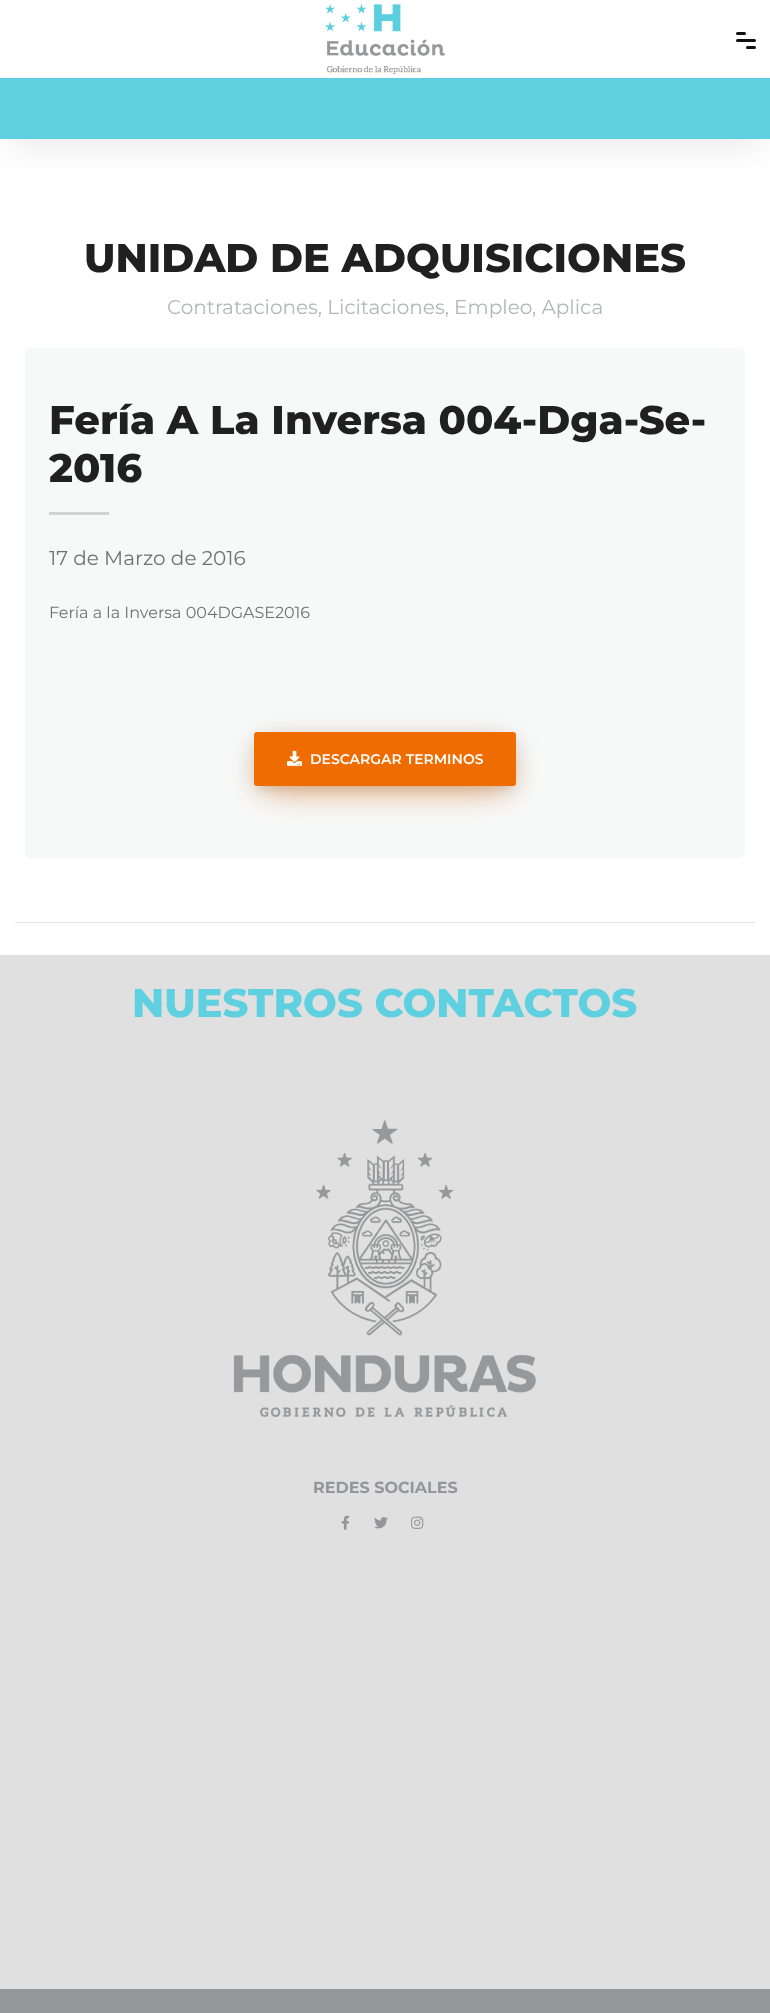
<svg xmlns="http://www.w3.org/2000/svg" width="770" height="2013" viewBox="0 0 770 2013">
  <defs>
    <clipPath id="clip1"><path d="M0 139h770v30H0z"/></clipPath>
  </defs>
  <rect width="100%" height="100%" fill="#fff"/>
  <g clip-path="url(#clip1)">
    <rect x="5" y="94" width="760" height="50" rx="25" fill="#0000001a" filter="blur(20px)"/>
  </g>
  <image x="325" y="4" width="120" height="70" href="img/1.png"/>
  <rect x="736" y="32" width="10" height="3" rx="1.5" fill="#111"/>
  <rect x="736" y="39" width="20" height="3" rx="1.5" fill="#111"/>
  <rect x="746" y="46" width="10" height="3" rx="1.5" fill="#111"/>
  <path d="M0 78h770v61H0z" fill="#5fd0df"/>
  <rect x="25" y="348" width="720" height="510" rx="5" fill="#f7f9f9"/>
  <path d="M49 512h60v3H49z" fill="#d2d4d4"/>
  <rect x="256" y="738" width="258" height="50" rx="1" fill="#00000024" filter="blur(12.5px)"/>
  <path d="M259 745h252v44H259z" fill="#00000017" filter="blur(5px)"/>
  <path d="M264 754h242v34H264z" fill="#ef6c008c" filter="blur(17.5px)"/>
  <rect x="255" y="733" width="260" height="52" rx="2" fill="#ef6c00" stroke="#ef6c00" stroke-width="2"/>
  <image x="287" y="750" width="15" height="16" href="img/2.png"/>
  <path d="M15 922h740v1H15z" fill="#e6e6e6"/>
  <path d="M0 955h770v1034H0z" fill="#e0e0e0"/>
  <image x="233" y="1120" width="303" height="297" href="img/3.png"/>
  <image x="341" y="1515" width="9" height="15" href="img/4.png"/>
  <image x="374" y="1517" width="14" height="12" href="img/5.png"/>
  <image x="411" y="1516" width="13" height="13" href="img/6.png"/>
  <path d="M0 1989h770v24H0z" fill="#949699"/>
  <text x="84" y="272" font-family="Montserrat" font-size="40" font-weight="800" fill="#202020">UNIDAD DE ADQUISICIONES</text>
  <text x="167" y="314" font-family="Montserrat" font-size="20" fill="#b3b6b7">Contrataciones, Licitaciones, Empleo, Aplica</text>
  <g font-family="Montserrat" font-size="40" font-weight="800" fill="#202020">
    <text x="49" y="434">Fería A La Inversa 004-Dga-Se-</text>
    <text x="49" y="482">2016</text>
  </g>
  <text x="49" y="565" font-family="Montserrat" font-size="20" fill="#717171">17 de Marzo de 2016</text>
  <text x="49" y="618" font-family="Montserrat" font-size="16" fill="#717171">Fería a la Inversa 004DGASE2016</text>
  <text x="310" y="764" font-family="Montserrat" font-size="14" font-weight="600" fill="#fff">DESCARGAR TERMINOS</text>
  <text x="132" y="1017" font-family="Montserrat" font-size="40" font-weight="800" fill="#5fd0df">NUESTROS CONTACTOS</text>
  <text x="313" y="1493" font-family="Montserrat" font-size="16" font-weight="bold" fill="#949699">REDES SOCIALES</text>
</svg>
